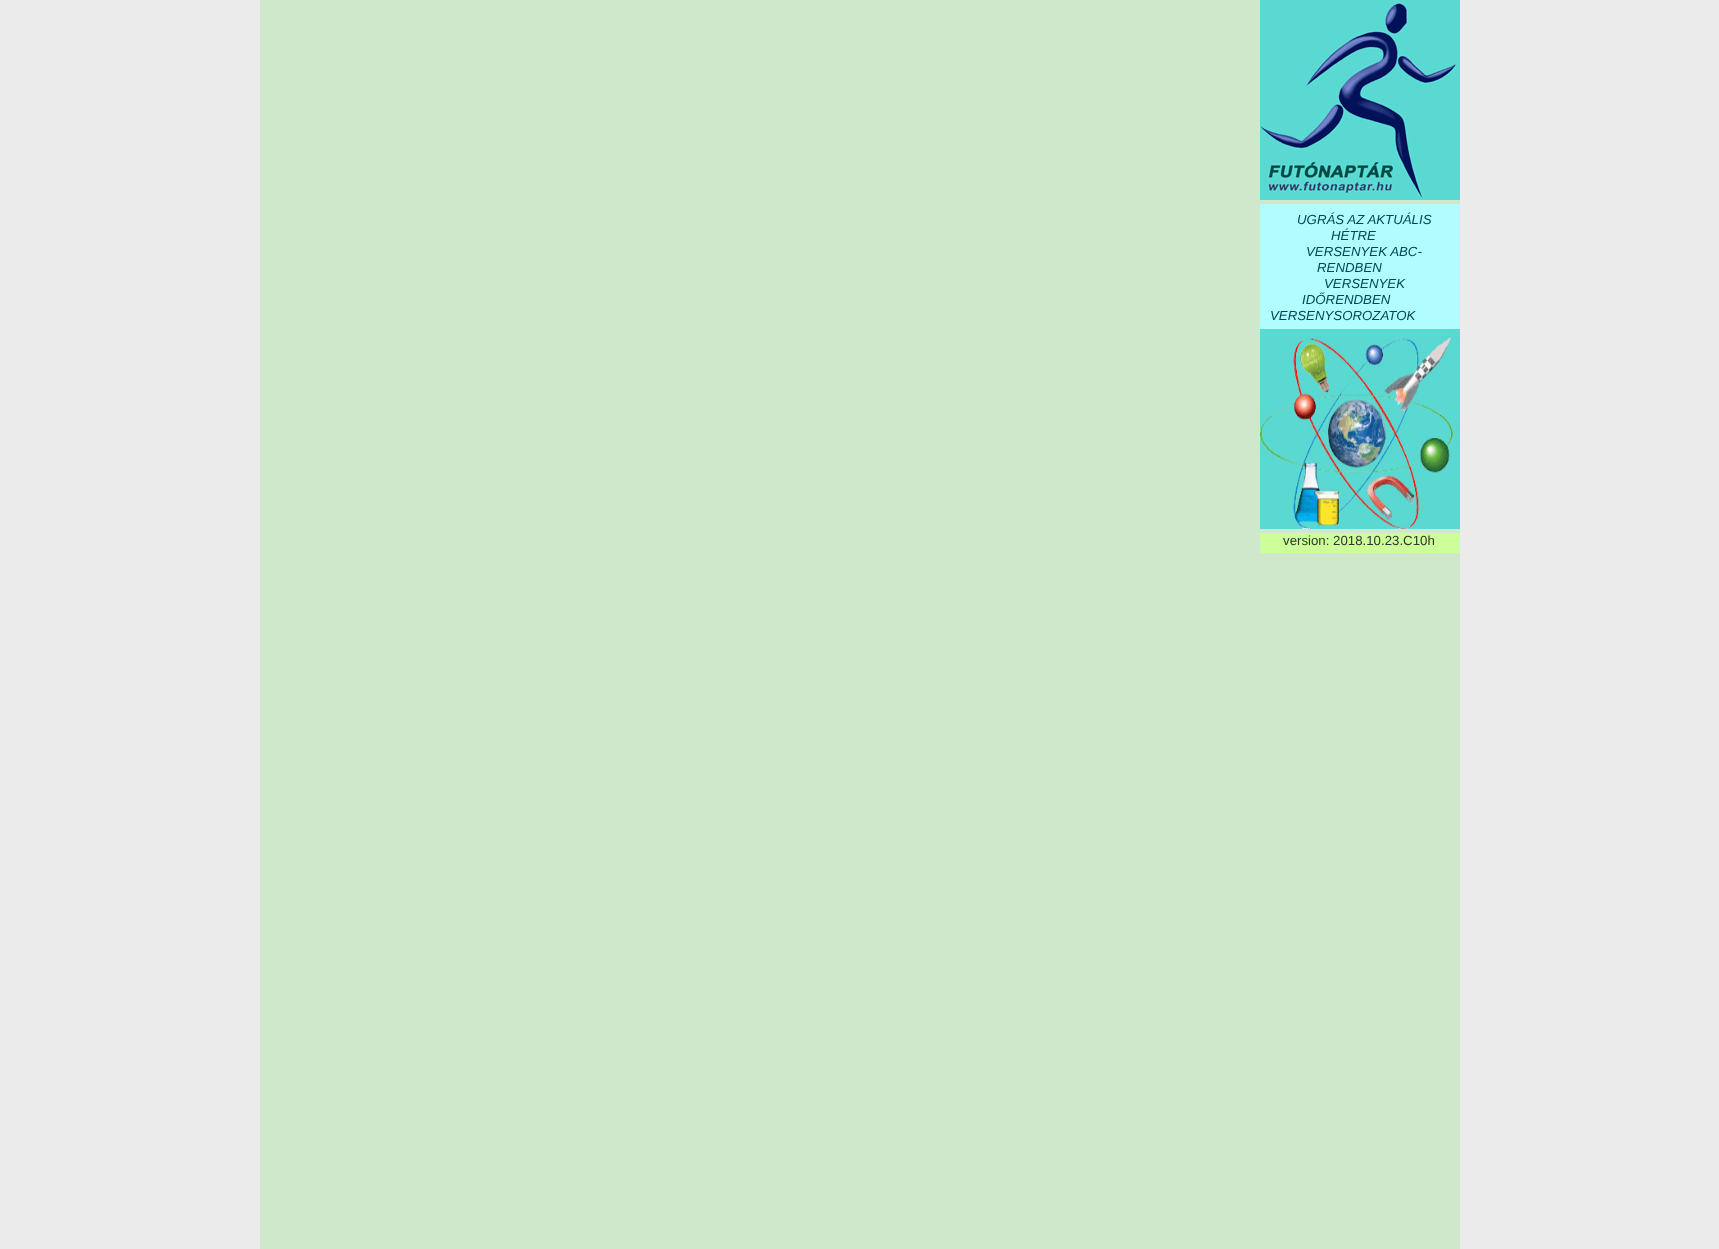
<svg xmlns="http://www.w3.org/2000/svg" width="1719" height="1249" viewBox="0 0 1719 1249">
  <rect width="100%" height="100%" fill="#ebebeb"/>
  <path d="M260 0h1200v1249H260z" fill="#cfe8cb"/>
  <image x="1260" y="0" width="200" height="200" href="img/1.png"/>
  <path d="M1260 204h200v125H1260z" fill="#b0fcff"/>
  <image x="1260" y="329" width="200" height="200" href="img/2.png"/>
  <path d="M1260 533h200v20H1260z" fill="#cf9"/>
  <g font-family="Liberation Sans" font-size="13.25" font-style="italic" fill="#004754">
    <text x="1297" y="224">UGRÁS AZ AKTUÁLIS</text>
    <text x="1331" y="240">HÉTRE</text>
    <text x="1306" y="256">VERSENYEK ABC-</text>
    <text x="1317" y="272">RENDBEN</text>
    <text x="1324" y="288">VERSENYEK</text>
    <text x="1302" y="304">IDŐRENDBEN</text>
    <text x="1270" y="320">VERSENYSOROZATOK</text>
  </g>
  <text x="1283" y="545" font-family="Liberation Sans" font-size="13.25" fill="#333">version: 2018.10.23.C10h</text>
</svg>
